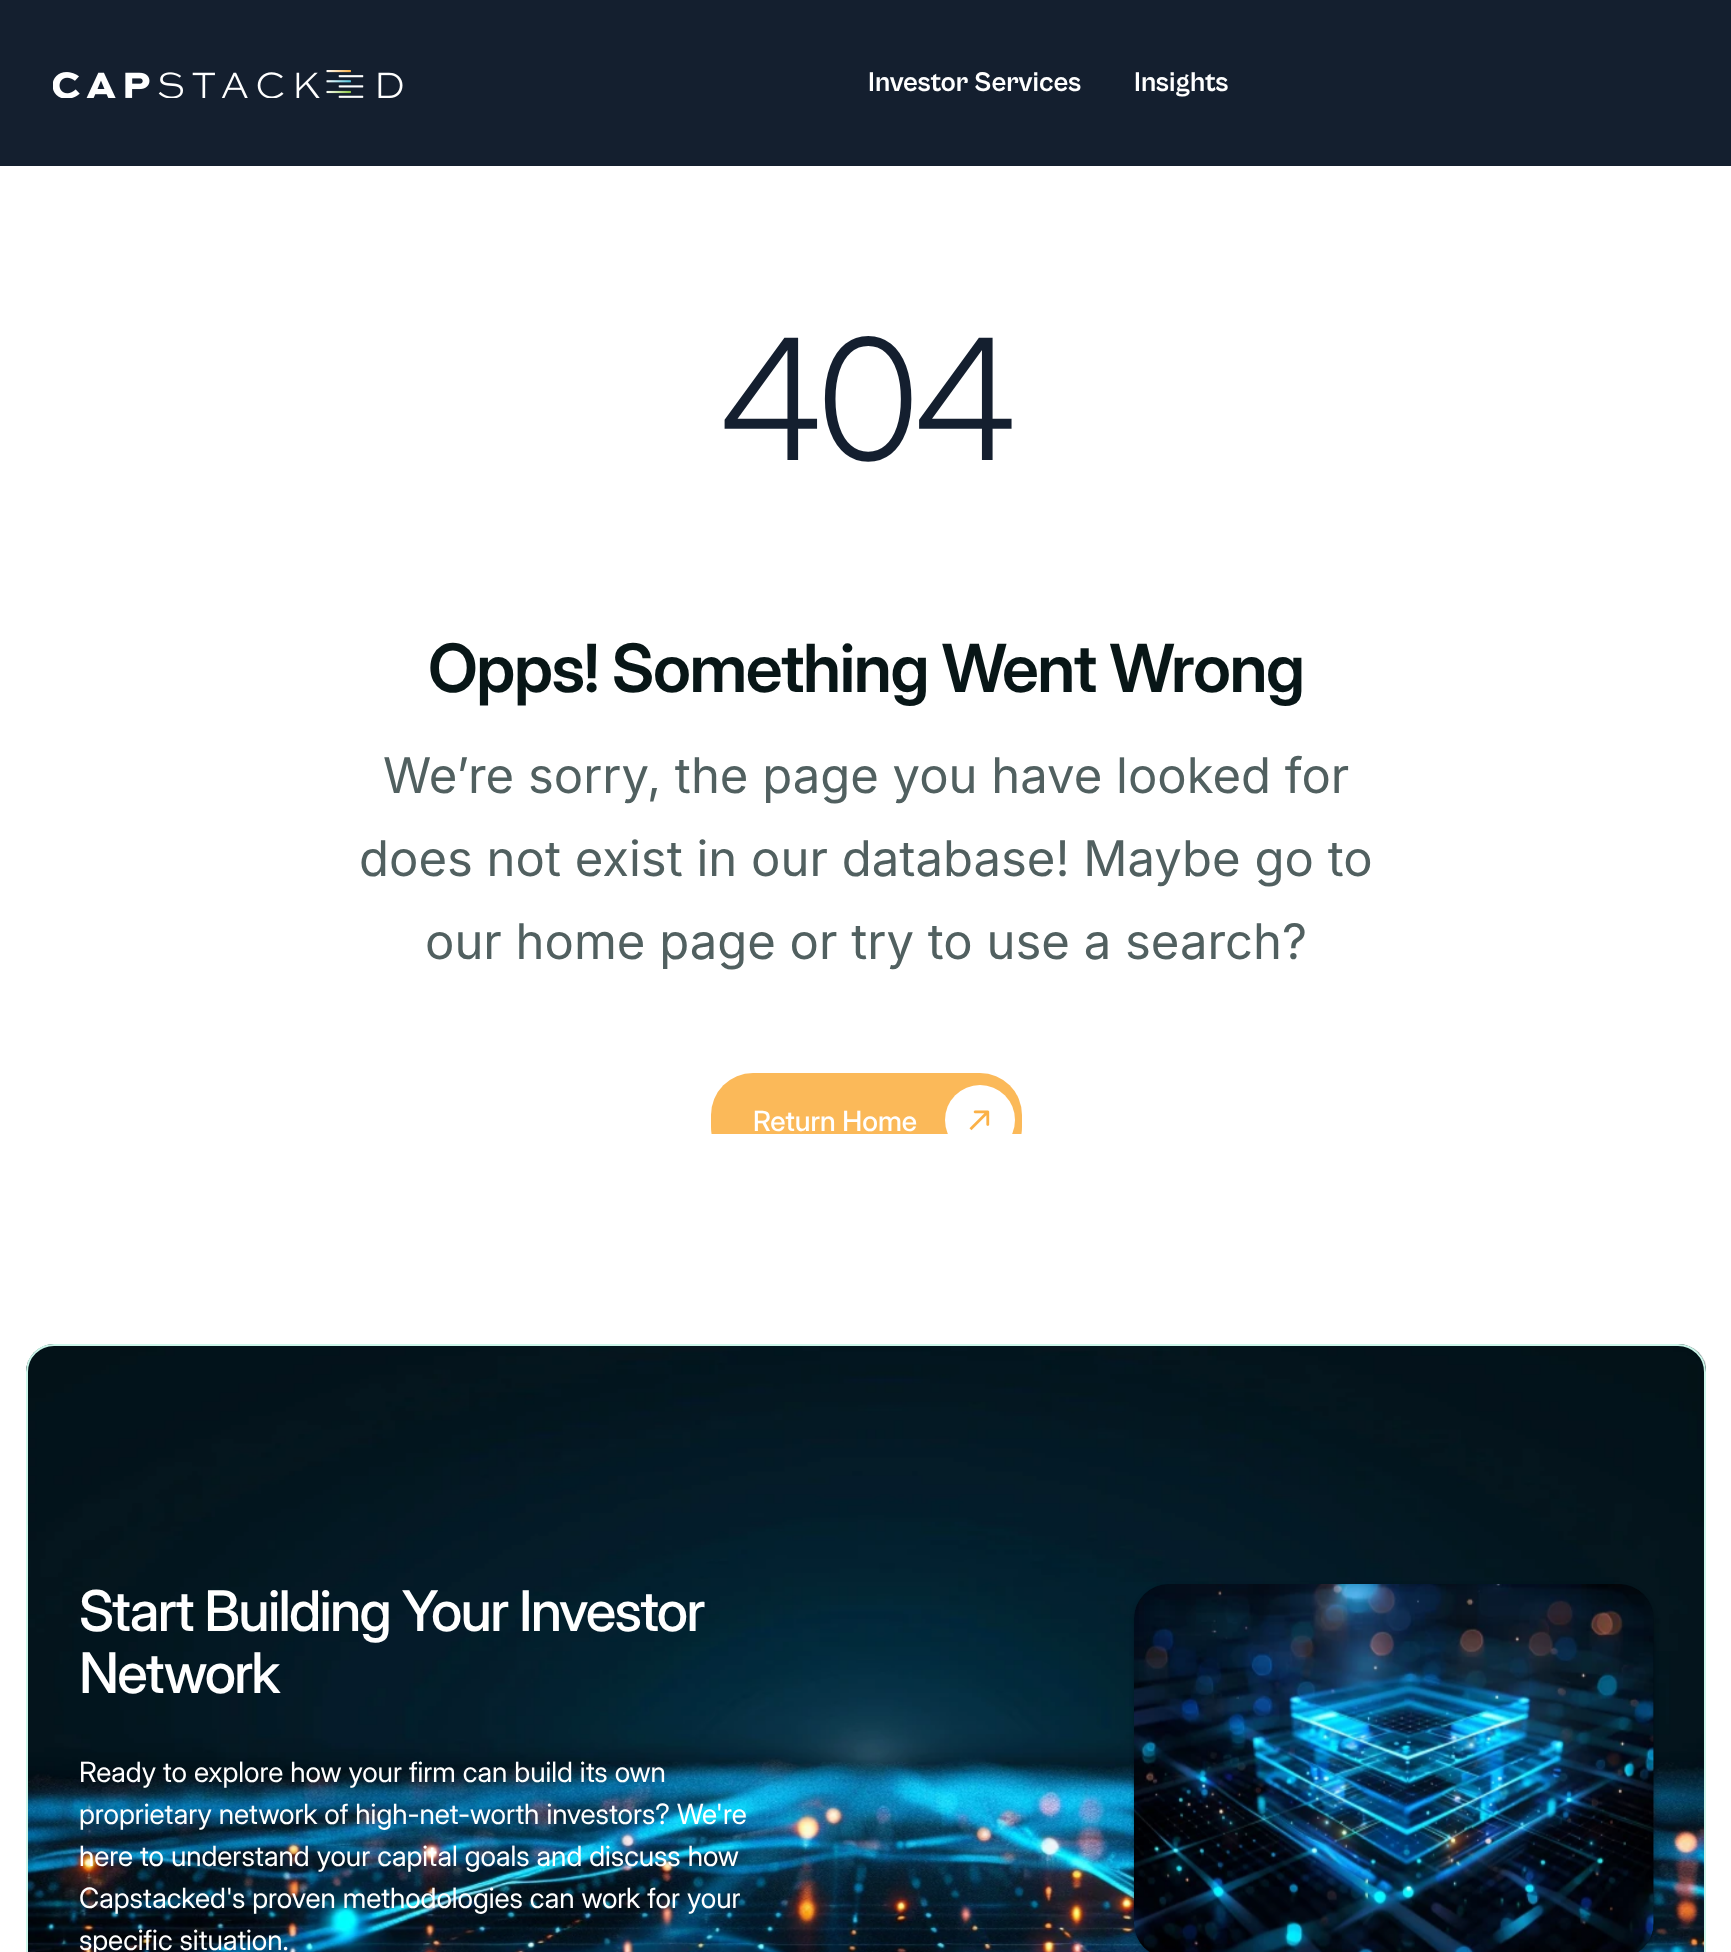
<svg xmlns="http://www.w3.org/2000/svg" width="1731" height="1952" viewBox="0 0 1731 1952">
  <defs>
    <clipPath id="clip1"><path d="M0 0h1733v1134H0z"/></clipPath>
  </defs>
  <rect width="100%" height="100%" fill="#fff"/>
  <path d="M0 0h1731v166H0z" fill="#141f2f"/>
  <image x="53" y="70" width="350" height="28" href="img/1.png"/>
  <g clip-path="url(#clip1)">
    <rect x="711" y="1073" width="311" height="96" rx="42" fill="#fbb959"/>
    <circle cx="980" cy="1120" r="35" fill="#fff"/>
  </g>
  <image x="969" y="1110" width="21" height="21" href="img/2.png"/>
  <image x="26" y="1344" width="1680" height="608" href="img/3.png"/>
  <rect x="27" y="1345" width="1678" height="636" rx="27" fill="none" stroke="#ccf6ea" stroke-width="2"/>
  <rect x="1134" y="1586" width="520" height="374" rx="35" fill="#00000040" filter="blur(2px)"/>
  <image x="1134" y="1584" width="520" height="368" href="img/4.png"/>
  <g font-family="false" font-size="28" font-weight="bold" fill="#fff">
    <text x="868" y="91">Investor Services</text>
    <text x="1134" y="91">Insights</text>
  </g>
  <text x="720" y="460" font-family="Inter Display" font-size="168" font-weight="300" letter-spacing="-3.5" fill="#141f2f">404</text>
  <text x="428" y="692" font-family="Inter Display" font-size="66.5" font-weight="600" letter-spacing="-1.4" fill="#081617">Opps! Something Went Wrong</text>
  <g font-family="Inter" font-size="49" fill="#516060">
    <text x="383" y="793">We’re sorry, the page you have looked for</text>
    <text x="359" y="876">does not exist in our database! Maybe go to</text>
    <text x="425" y="959">our home page or try to use a search?</text>
  </g>
  <text x="753" y="1131" font-family="Inter Display" font-size="28" font-weight="500" fill="#fff">Return Home</text>
  <g font-family="Inter Display" font-size="56" font-weight="500" letter-spacing="-1.75" fill="#fff">
    <text x="79" y="1631">Start Building Your Investor</text>
    <text x="79" y="1693">Network</text>
  </g>
  <g font-family="Inter Display" font-size="28" fill="#fff">
    <text x="79" y="1782">Ready to explore how your firm can build its own</text>
    <text x="79" y="1824">proprietary network of high-net-worth investors? We're</text>
    <text x="79" y="1866">here to understand your capital goals and discuss how</text>
    <text x="79" y="1908">Capstacked's proven methodologies can work for your</text>
    <text x="79" y="1950">specific situation.</text>
  </g>
</svg>
